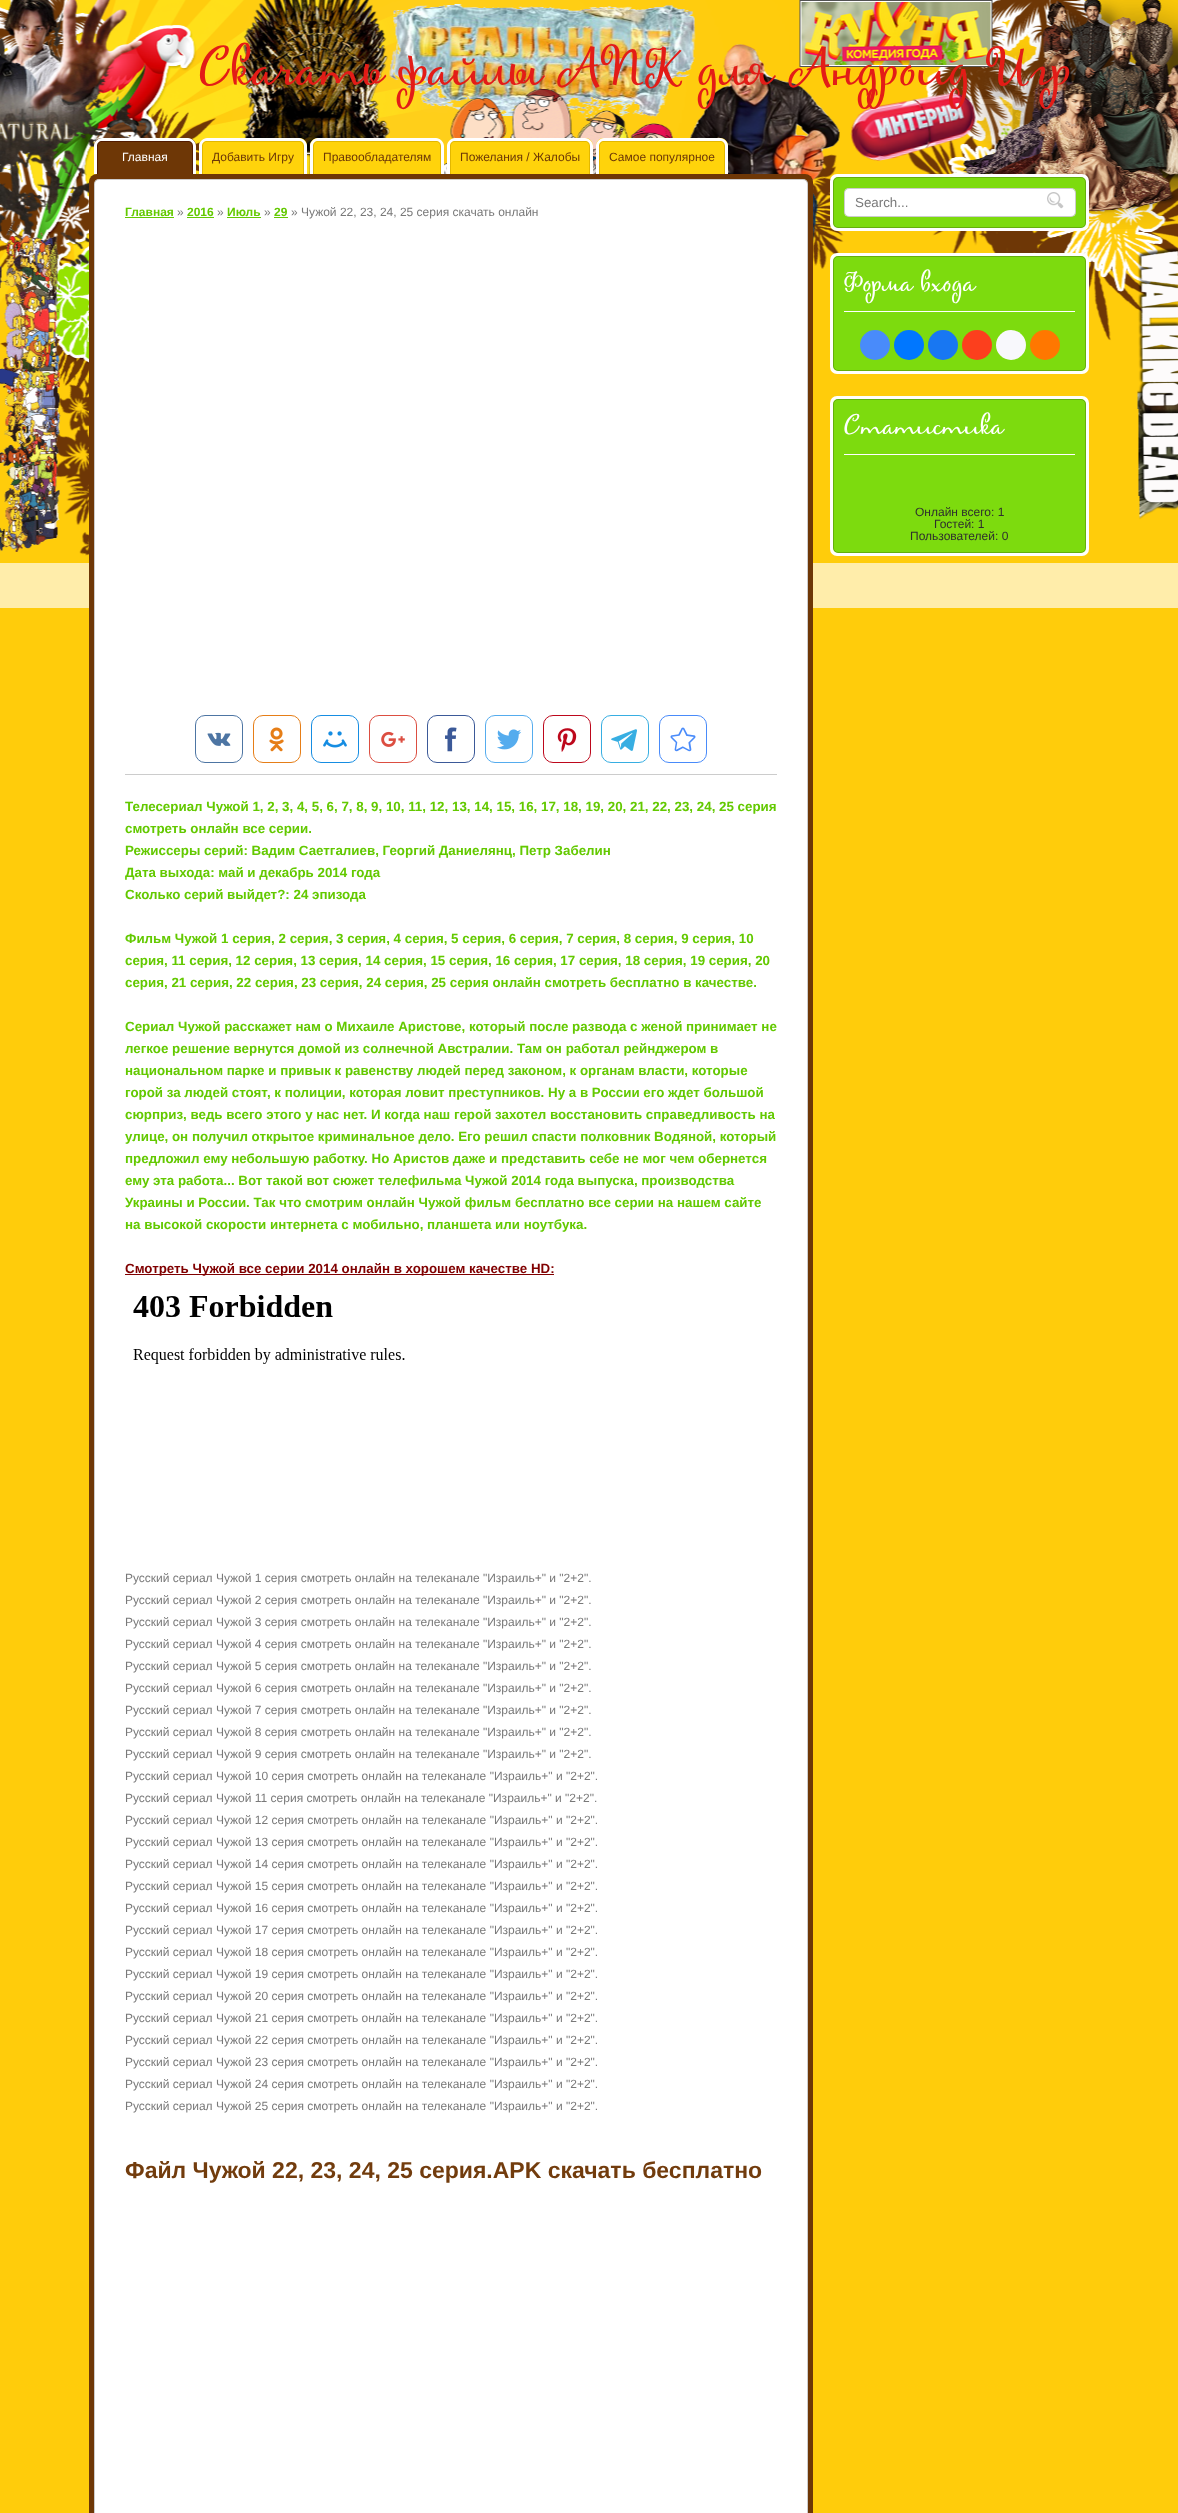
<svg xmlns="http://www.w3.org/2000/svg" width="1178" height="2513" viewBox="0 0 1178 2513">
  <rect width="100%" height="100%" fill="#ffcc0b"/>
  <image x="0" y="0" width="1178" height="608" href="img/1.png"/>
  <path d="M102 138H188C192.5 138 196 141.5 196 146V174H94V146C94 141.5 97.5 138 102 138Z" fill="#6e3706"/>
  <path d="M192 174H193V146C193 143 191 141 188 141H187C190 141 192 143 192 146Z" fill="#521b00"/>
  <path d="M102 141C99 141 97 143 97 146V174H98V146C98 143 100 141 103 141Z" fill="#521b00"/>
  <path d="M102 142H188C191 142 193 144 193 147C193 137 179 141 174 141H116C111 141 97 137 97 147C97 144 99 142 102 142Z" fill="#521b00"/>
  <path d="M102 138H188C192 138 196 142 196 146V174H94V146C94 142 98 138 102 138ZM102 141H188C191 141 193 143 193 146V174H97V146C97 143 99 141 102 141Z" fill="#fff" fill-rule="evenodd"/>
  <path d="M207 138H299C303.5 138 307 141.5 307 146V174H199V146C199 141.5 202.5 138 207 138Z" fill="#ffd30b"/>
  <path d="M303 174H304V146C304 143 302 141 299 141H298C301 141 303 143 303 146Z" fill="#e3b700"/>
  <path d="M207 141C204 141 202 143 202 146V174H203V146C203 143 205 141 208 141Z" fill="#e3b700"/>
  <path d="M207 142H299C302 142 304 144 304 147C304 137 289 141 284 141H222C217 141 202 137 202 147C202 144 204 142 207 142Z" fill="#e3b700"/>
  <path d="M207 138H299C303 138 307 142 307 146V174H199V146C199 142 203 138 207 138ZM207 141H299C302 141 304 143 304 146V174H202V146C202 143 204 141 207 141Z" fill="#fff" fill-rule="evenodd"/>
  <path d="M318 138H436C440.5 138 444 141.5 444 146V174H310V146C310 141.5 313.5 138 318 138Z" fill="#ffd30b"/>
  <path d="M440 174H441V146C441 143 439 141 436 141H435C438 141 440 143 440 146Z" fill="#e3b700"/>
  <path d="M318 141C315 141 313 143 313 146V174H314V146C314 143 316 141 319 141Z" fill="#e3b700"/>
  <path d="M318 142H436C439 142 441 144 441 147C441 136 420 141 416 141H338C334 141 313 136 313 147C313 144 315 142 318 142Z" fill="#e3b700"/>
  <path d="M318 138H436C440 138 444 142 444 146V174H310V146C310 142 314 138 318 138ZM318 141H436C439 141 441 143 441 146V174H313V146C313 143 315 141 318 141Z" fill="#fff" fill-rule="evenodd"/>
  <path d="M455 138H585C589.5 138 593 141.5 593 146V174H447V146C447 141.5 450.5 138 455 138Z" fill="#ffd30b"/>
  <path d="M589 174H590V146C590 143 588 141 585 141H584C587 141 589 143 589 146Z" fill="#e3b700"/>
  <path d="M455 141C452 141 450 143 450 146V174H451V146C451 143 453 141 456 141Z" fill="#e3b700"/>
  <path d="M455 142H585C588 142 590 144 590 147V146C590 143 588 141 585 141H455C452 141 450 143 450 146V147C450 144 452 142 455 142Z" fill="#e3b700"/>
  <path d="M455 138H585C589 138 593 142 593 146V174H447V146C447 142 451 138 455 138ZM455 141H585C588 141 590 143 590 146V174H450V146C450 143 452 141 455 141Z" fill="#fff" fill-rule="evenodd"/>
  <path d="M604 138H720C724.5 138 728 141.5 728 146V174H596V146C596 141.5 599.5 138 604 138Z" fill="#ffd30b"/>
  <path d="M724 174H725V146C725 143 723 141 720 141H719C722 141 724 143 724 146Z" fill="#e3b700"/>
  <path d="M604 141C601 141 599 143 599 146V174H600V146C600 143 602 141 605 141Z" fill="#e3b700"/>
  <path d="M604 142H720C723 142 725 144 725 147C725 136 705 141 701 141H623C619 141 599 136 599 147C599 144 601 142 604 142Z" fill="#e3b700"/>
  <path d="M604 138H720C724 138 728 142 728 146V174H596V146C596 142 600 138 604 138ZM604 141H720C723 141 725 143 725 146V174H599V146C599 143 601 141 604 141Z" fill="#fff" fill-rule="evenodd"/>
  <rect x="89" y="174" width="724" height="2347" rx="8" fill="#6e3706"/>
  <rect x="94" y="179" width="714" height="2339" rx="5" fill="#fff"/>
  <rect x="94.5" y="179.5" width="713" height="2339" rx="4.5" fill="none" stroke="#00000033"/>
  <path d="M125 217h49v1H125z" fill="#63c900"/>
  <path d="M187 217h27v1H187z" fill="#63c900"/>
  <path d="M227 217h34v1H227z" fill="#63c900"/>
  <path d="M274 217h14v1H274z" fill="#63c900"/>
  <rect x="195.5" y="715.5" width="47" height="47" rx="9.5" fill="none" stroke="#4d75a3"/>
  <image x="207" y="732" width="24" height="14" href="img/2.png"/>
  <rect x="253.5" y="715.5" width="47" height="47" rx="9.5" fill="none" stroke="#e67e17"/>
  <image x="269" y="727" width="15" height="25" href="img/3.png"/>
  <rect x="311.5" y="715.5" width="47" height="47" rx="9.5" fill="none" stroke="#168de2"/>
  <image x="323" y="731" width="24" height="17" href="img/4.png"/>
  <rect x="369.5" y="715.5" width="47" height="47" rx="9.5" fill="none" stroke="#dc4e41"/>
  <image x="381" y="731" width="24" height="16" href="img/5.png"/>
  <rect x="427.5" y="715.5" width="47" height="47" rx="9.5" fill="none" stroke="#3b5998"/>
  <image x="445" y="727" width="12" height="25" href="img/6.png"/>
  <rect x="485.5" y="715.5" width="47" height="47" rx="9.5" fill="none" stroke="#55acee"/>
  <image x="497" y="729" width="25" height="21" href="img/7.png"/>
  <rect x="543.5" y="715.5" width="47" height="47" rx="9.5" fill="none" stroke="#bd081c"/>
  <image x="557" y="728" width="20" height="24" href="img/8.png"/>
  <rect x="601.5" y="715.5" width="47" height="47" rx="9.5" fill="none" stroke="#37aee2"/>
  <image x="611" y="729" width="26" height="22" href="img/9.png"/>
  <rect x="659.5" y="715.5" width="47" height="47" rx="9.5" fill="none" stroke="#498bfa"/>
  <image x="670" y="727" width="26" height="25" href="img/10.png"/>
  <path d="M125 774h652v1H125z" fill="#ccc"/>
  <path d="M125 1274h429v1H125z" fill="#800000"/>
  <image x="133" y="1295" width="272" height="69" href="img/11.png"/>
  <rect x="830" y="174" width="259" height="57" rx="7" fill="#fff"/>
  <rect x="833" y="177" width="253" height="51" rx="5" fill="#7ddb0e"/>
  <rect x="833.5" y="177.5" width="252" height="50" rx="4.5" fill="none" stroke="#00000033"/>
  <rect x="844" y="188" width="232" height="29" rx="5" fill="#fff"/>
  <rect x="844.5" y="188.5" width="231" height="28" rx="4.5" fill="none" stroke="#00000033"/>
  <image x="1047" y="192" width="17" height="17" href="img/12.png"/>
  <rect x="830" y="253" width="259" height="121" rx="7" fill="#fff"/>
  <rect x="833" y="256" width="253" height="115" rx="5" fill="#7ddb0e"/>
  <rect x="833.5" y="256.5" width="252" height="114" rx="4.5" fill="none" stroke="#00000033"/>
  <path d="M844 311h231v1H844z" fill="#fff"/>
  <circle cx="875" cy="345" r="15" fill="#498bfa"/>
  <circle cx="909" cy="345" r="15" fill="#07f"/>
  <circle cx="943" cy="345" r="15" fill="#1877f2"/>
  <circle cx="977" cy="345" r="15" fill="#fc3f1d"/>
  <circle cx="1011" cy="345" r="15" fill="#f8f8fc"/>
  <circle cx="1045" cy="345" r="15" fill="#f70"/>
  <rect x="830" y="396" width="259" height="160" rx="7" fill="#fff"/>
  <rect x="833" y="399" width="253" height="154" rx="5" fill="#7ddb0e"/>
  <rect x="833.5" y="399.5" width="252" height="153" rx="4.5" fill="none" stroke="#00000033"/>
  <path d="M844 454h231v1H844z" fill="#fff"/>
  <text x="199" y="85" font-family="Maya" font-size="47" fill="#e31c17">Скачать файлы АПК для Андроид Игр</text>
  <text x="122" y="161" font-family="Liberation Sans" font-size="12" fill="#fff">Главная</text>
  <g font-family="Liberation Sans" font-size="12" fill="#6c3707">
    <text x="212" y="161">Добавить Игру</text>
    <text x="323" y="161">Правообладателям</text>
    <text x="460" y="161">Пожелания / Жалобы</text>
    <text x="609" y="161">Самое популярное</text>
  </g>
  <text x="125" y="216" font-family="Liberation Sans" font-size="12" font-weight="bold" fill="#63c900">Главная</text>
  <text x="177" y="216" font-family="Liberation Sans" font-size="12" fill="#797979">»</text>
  <text x="187" y="216" font-family="Liberation Sans" font-size="12" font-weight="bold" fill="#63c900">2016</text>
  <text x="217" y="216" font-family="Liberation Sans" font-size="12" fill="#797979">»</text>
  <text x="227" y="216" font-family="Liberation Sans" font-size="12" font-weight="bold" fill="#63c900">Июль</text>
  <text x="264" y="216" font-family="Liberation Sans" font-size="12" fill="#797979">»</text>
  <text x="274" y="216" font-family="Liberation Sans" font-size="12" font-weight="bold" fill="#63c900">29</text>
  <text x="291" y="216" font-family="Liberation Sans" font-size="12" fill="#797979">» Чужой 22, 23, 24, 25 серия скачать онлайн</text>
  <g font-family="Liberation Sans" font-size="13.35" font-weight="bold" fill="#63c900">
    <text x="125" y="811">Телесериал Чужой 1, 2, 3, 4, 5, 6, 7, 8, 9, 10, 11, 12, 13, 14, 15, 16, 17, 18, 19, 20, 21, 22, 23, 24, 25 серия</text>
    <text x="125" y="833">смотреть онлайн все серии.</text>
    <text x="125" y="855">Режиссеры серий: Вадим Саетгалиев, Георгий Даниелянц, Петр Забелин</text>
    <text x="125" y="877">Дата выхода: май и декабрь 2014 года</text>
    <text x="125" y="899">Сколько серий выйдет?: 24 эпизода</text>
    <text x="125" y="943">Фильм Чужой 1 серия, 2 серия, 3 серия, 4 серия, 5 серия, 6 серия, 7 серия, 8 серия, 9 серия, 10</text>
    <text x="125" y="965">серия, 11 серия, 12 серия, 13 серия, 14 серия, 15 серия, 16 серия, 17 серия, 18 серия, 19 серия, 20</text>
    <text x="125" y="987">серия, 21 серия, 22 серия, 23 серия, 24 серия, 25 серия онлайн смотреть бесплатно в качестве.</text>
    <text x="125" y="1031">Сериал Чужой расскажет нам о Михаиле Аристове, который после развода с женой принимает не</text>
    <text x="125" y="1053">легкое решение вернутся домой из солнечной Австралии. Там он работал рейнджером в</text>
    <text x="125" y="1075">национальном парке и привык к равенству людей перед законом, к органам власти, которые</text>
    <text x="125" y="1097">горой за людей стоят, к полиции, которая ловит преступников. Ну а в России его ждет большой</text>
    <text x="125" y="1119">сюрприз, ведь всего этого у нас нет. И когда наш герой захотел восстановить справедливость на</text>
    <text x="125" y="1141">улице, он получил открытое криминальное дело. Его решил спасти полковник Водяной, который</text>
    <text x="125" y="1163">предложил ему небольшую работку. Но Аристов даже и представить себе не мог чем обернется</text>
    <text x="125" y="1185">ему эта работа... Вот такой вот сюжет телефильма Чужой 2014 года выпуска, производства</text>
    <text x="125" y="1207">Украины и России. Так что смотрим онлайн Чужой фильм бесплатно все серии на нашем сайте</text>
    <text x="125" y="1229">на высокой скорости интернета с мобильно, планшета или ноутбука.</text>
  </g>
  <text x="125" y="1273" font-family="Liberation Sans" font-size="13.35" font-weight="bold" fill="#800000">Смотреть Чужой все серии 2014 онлайн в хорошем качестве HD:</text>
  <g font-family="Liberation Sans" font-size="12" fill="#797979">
    <text x="125" y="1582">Русский сериал Чужой 1 серия смотреть онлайн на телеканале "Израиль+" и "2+2".</text>
    <text x="125" y="1604">Русский сериал Чужой 2 серия смотреть онлайн на телеканале "Израиль+" и "2+2".</text>
    <text x="125" y="1626">Русский сериал Чужой 3 серия смотреть онлайн на телеканале "Израиль+" и "2+2".</text>
    <text x="125" y="1648">Русский сериал Чужой 4 серия смотреть онлайн на телеканале "Израиль+" и "2+2".</text>
    <text x="125" y="1670">Русский сериал Чужой 5 серия смотреть онлайн на телеканале "Израиль+" и "2+2".</text>
    <text x="125" y="1692">Русский сериал Чужой 6 серия смотреть онлайн на телеканале "Израиль+" и "2+2".</text>
    <text x="125" y="1714">Русский сериал Чужой 7 серия смотреть онлайн на телеканале "Израиль+" и "2+2".</text>
    <text x="125" y="1736">Русский сериал Чужой 8 серия смотреть онлайн на телеканале "Израиль+" и "2+2".</text>
    <text x="125" y="1758">Русский сериал Чужой 9 серия смотреть онлайн на телеканале "Израиль+" и "2+2".</text>
    <text x="125" y="1780">Русский сериал Чужой 10 серия смотреть онлайн на телеканале "Израиль+" и "2+2".</text>
    <text x="125" y="1802">Русский сериал Чужой 11 серия смотреть онлайн на телеканале "Израиль+" и "2+2".</text>
    <text x="125" y="1824">Русский сериал Чужой 12 серия смотреть онлайн на телеканале "Израиль+" и "2+2".</text>
    <text x="125" y="1846">Русский сериал Чужой 13 серия смотреть онлайн на телеканале "Израиль+" и "2+2".</text>
    <text x="125" y="1868">Русский сериал Чужой 14 серия смотреть онлайн на телеканале "Израиль+" и "2+2".</text>
    <text x="125" y="1890">Русский сериал Чужой 15 серия смотреть онлайн на телеканале "Израиль+" и "2+2".</text>
    <text x="125" y="1912">Русский сериал Чужой 16 серия смотреть онлайн на телеканале "Израиль+" и "2+2".</text>
    <text x="125" y="1934">Русский сериал Чужой 17 серия смотреть онлайн на телеканале "Израиль+" и "2+2".</text>
    <text x="125" y="1956">Русский сериал Чужой 18 серия смотреть онлайн на телеканале "Израиль+" и "2+2".</text>
    <text x="125" y="1978">Русский сериал Чужой 19 серия смотреть онлайн на телеканале "Израиль+" и "2+2".</text>
    <text x="125" y="2000">Русский сериал Чужой 20 серия смотреть онлайн на телеканале "Израиль+" и "2+2".</text>
    <text x="125" y="2022">Русский сериал Чужой 21 серия смотреть онлайн на телеканале "Израиль+" и "2+2".</text>
    <text x="125" y="2044">Русский сериал Чужой 22 серия смотреть онлайн на телеканале "Израиль+" и "2+2".</text>
    <text x="125" y="2066">Русский сериал Чужой 23 серия смотреть онлайн на телеканале "Израиль+" и "2+2".</text>
    <text x="125" y="2088">Русский сериал Чужой 24 серия смотреть онлайн на телеканале "Израиль+" и "2+2".</text>
    <text x="125" y="2110">Русский сериал Чужой 25 серия смотреть онлайн на телеканале "Израиль+" и "2+2".</text>
  </g>
  <text x="125" y="2178" font-family="Liberation Sans" font-size="23" font-weight="bold" fill="#723c0d">Файл Чужой 22, 23, 24, 25 серия.APK скачать бесплатно</text>
  <text x="855" y="207" font-family="Liberation Sans" font-size="13.35" fill="#797979">Search...</text>
  <g font-family="Maya" font-size="24" fill="#fff">
    <text x="844" y="291">Форма входа</text>
    <text x="844" y="434">Статистика</text>
  </g>
  <g font-family="Liberation Sans" font-size="12" fill="#2e2e2e">
    <text x="915" y="516">Онлайн всего: 1</text>
    <text x="934" y="528">Гостей: 1</text>
    <text x="910" y="540">Пользователей: 0</text>
  </g>
</svg>
